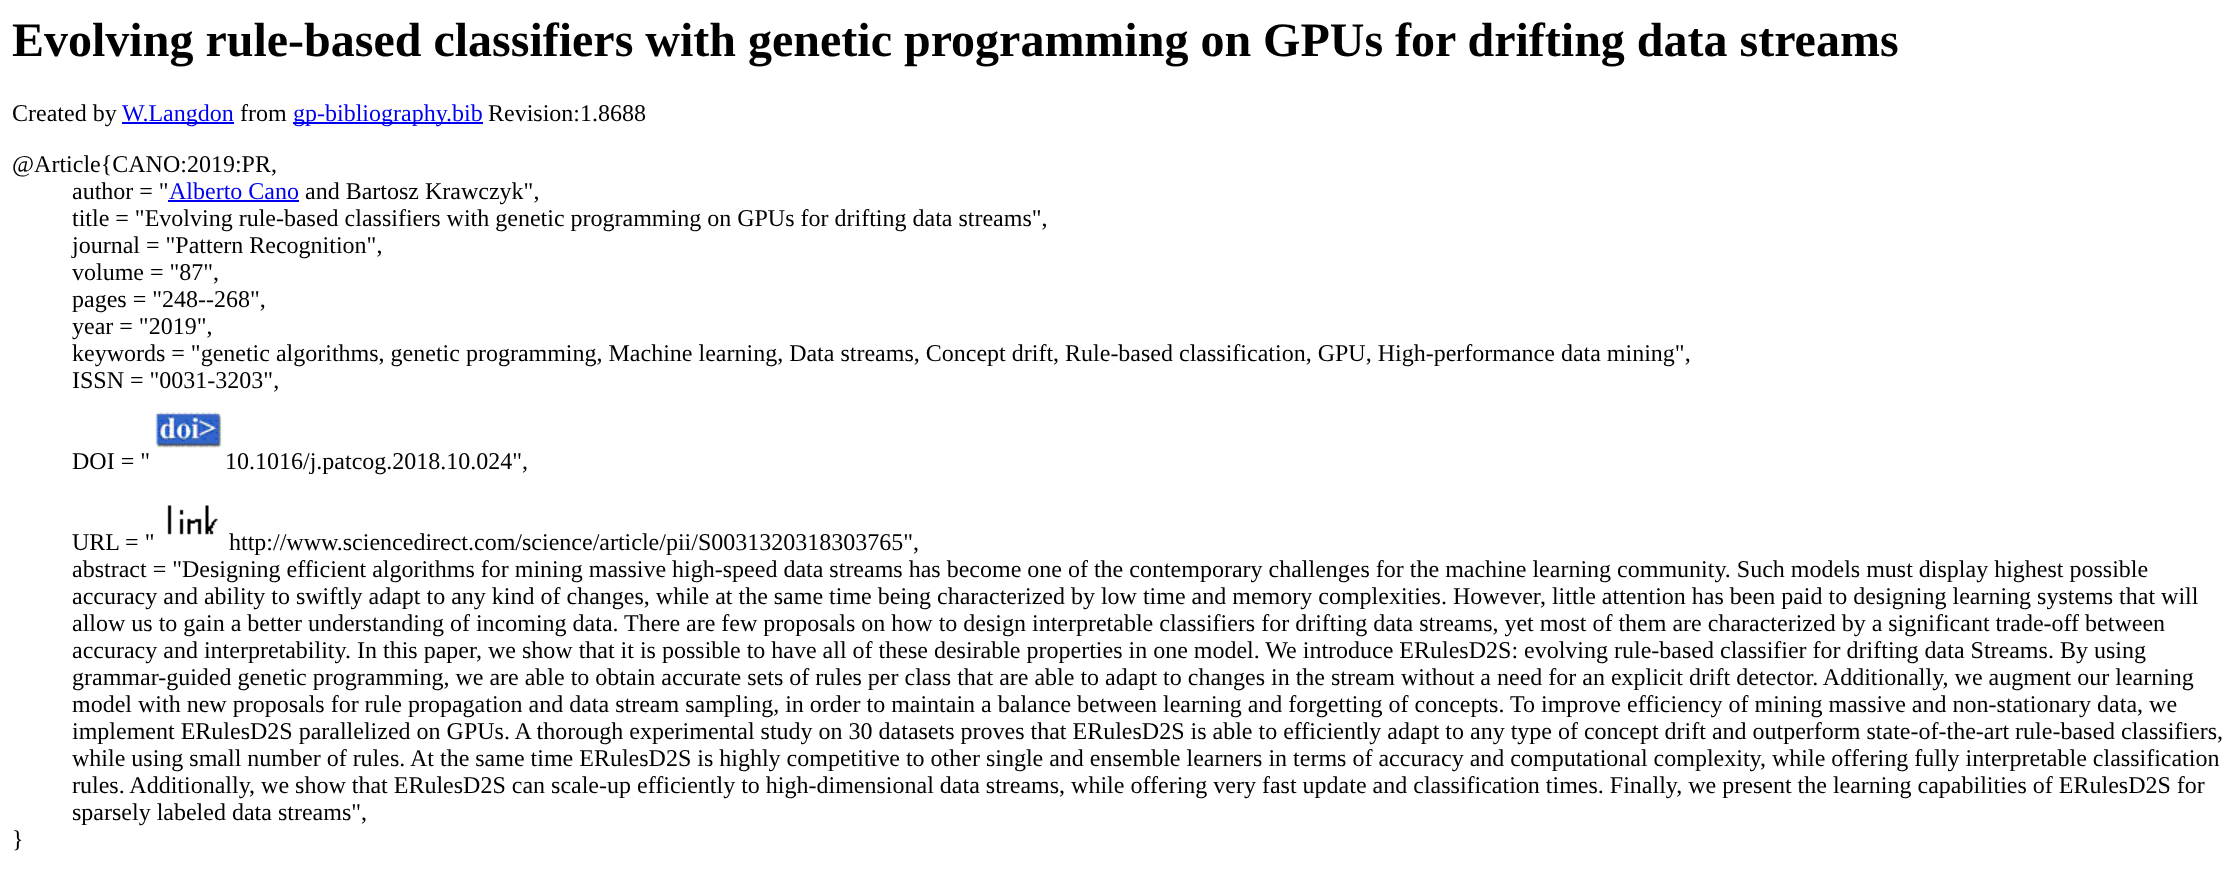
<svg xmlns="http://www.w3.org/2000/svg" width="2234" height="869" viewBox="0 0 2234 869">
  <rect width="100%" height="100%" fill="#fff"/>
  <path d="M122 122h112v2H122z" fill="#00e"/>
  <path d="M293 122h190v2H293z" fill="#00e"/>
  <path d="M168 200h131v2H168z" fill="#00e"/>
  <image x="155" y="412" width="68" height="36" href="img/1.png"/>
  <image x="167" y="505" width="51" height="30" href="img/2.png"/>
  <text x="12" y="56" font-family="Liberation Serif" font-size="48" font-weight="bold" fill="#000">Evolving rule-based classifiers with genetic programming on GPUs for drifting data streams</text>
  <text x="12" y="121" font-family="Liberation Serif" font-size="24" fill="#000">Created by</text>
  <text x="122" y="121" font-family="Liberation Serif" font-size="24" fill="#00e">W.Langdon</text>
  <text x="240" y="121" font-family="Liberation Serif" font-size="24" fill="#000">from</text>
  <text x="293" y="121" font-family="Liberation Serif" font-size="24" fill="#00e">gp-bibliography.bib</text>
  <g font-family="Liberation Serif" font-size="24" fill="#000">
    <text x="488" y="121">Revision:1.8688</text>
    <text x="12" y="172">@Article{CANO:2019:PR,</text>
    <text x="72" y="199">author = "</text>
  </g>
  <text x="169" y="199" font-family="Liberation Serif" font-size="24" fill="#00e">Alberto Cano</text>
  <g font-family="Liberation Serif" font-size="24" fill="#000">
    <text x="305" y="199">and Bartosz Krawczyk",</text>
    <text x="72" y="226">title = "Evolving rule-based classifiers with genetic programming on GPUs for drifting data streams",</text>
    <text x="72" y="253">journal = "Pattern Recognition",</text>
    <text x="72" y="280">volume = "87",</text>
    <text x="72" y="307">pages = "248--268",</text>
    <text x="72" y="334">year = "2019",</text>
    <text x="72" y="361">keywords = "genetic algorithms, genetic programming, Machine learning, Data streams, Concept drift, Rule-based classification, GPU, High-performance data mining",</text>
    <text x="72" y="388">ISSN = "0031-3203",</text>
    <text x="72" y="469">DOI = "</text>
    <text x="225" y="469">10.1016/j.patcog.2018.10.024",</text>
    <text x="72" y="550">URL = "</text>
    <text x="229" y="550">http://www.sciencedirect.com/science/article/pii/S0031320318303765",</text>
    <text x="72" y="577">abstract = "Designing efficient algorithms for mining massive high-speed data streams has become one of the contemporary challenges for the machine learning community. Such models must display highest possible</text>
    <text x="72" y="604">accuracy and ability to swiftly adapt to any kind of changes, while at the same time being characterized by low time and memory complexities. However, little attention has been paid to designing learning systems that will</text>
    <text x="72" y="631">allow us to gain a better understanding of incoming data. There are few proposals on how to design interpretable classifiers for drifting data streams, yet most of them are characterized by a significant trade-off between</text>
    <text x="72" y="658">accuracy and interpretability. In this paper, we show that it is possible to have all of these desirable properties in one model. We introduce ERulesD2S: evolving rule-based classifier for drifting data Streams. By using</text>
    <text x="72" y="685">grammar-guided genetic programming, we are able to obtain accurate sets of rules per class that are able to adapt to changes in the stream without a need for an explicit drift detector. Additionally, we augment our learning</text>
    <text x="72" y="712">model with new proposals for rule propagation and data stream sampling, in order to maintain a balance between learning and forgetting of concepts. To improve efficiency of mining massive and non-stationary data, we</text>
    <text x="72" y="739">implement ERulesD2S parallelized on GPUs. A thorough experimental study on 30 datasets proves that ERulesD2S is able to efficiently adapt to any type of concept drift and outperform state-of-the-art rule-based classifiers,</text>
    <text x="72" y="766">while using small number of rules. At the same time ERulesD2S is highly competitive to other single and ensemble learners in terms of accuracy and computational complexity, while offering fully interpretable classification</text>
    <text x="72" y="793">rules. Additionally, we show that ERulesD2S can scale-up efficiently to high-dimensional data streams, while offering very fast update and classification times. Finally, we present the learning capabilities of ERulesD2S for</text>
    <text x="72" y="820">sparsely labeled data streams",</text>
    <text x="12" y="847">}</text>
  </g>
</svg>
